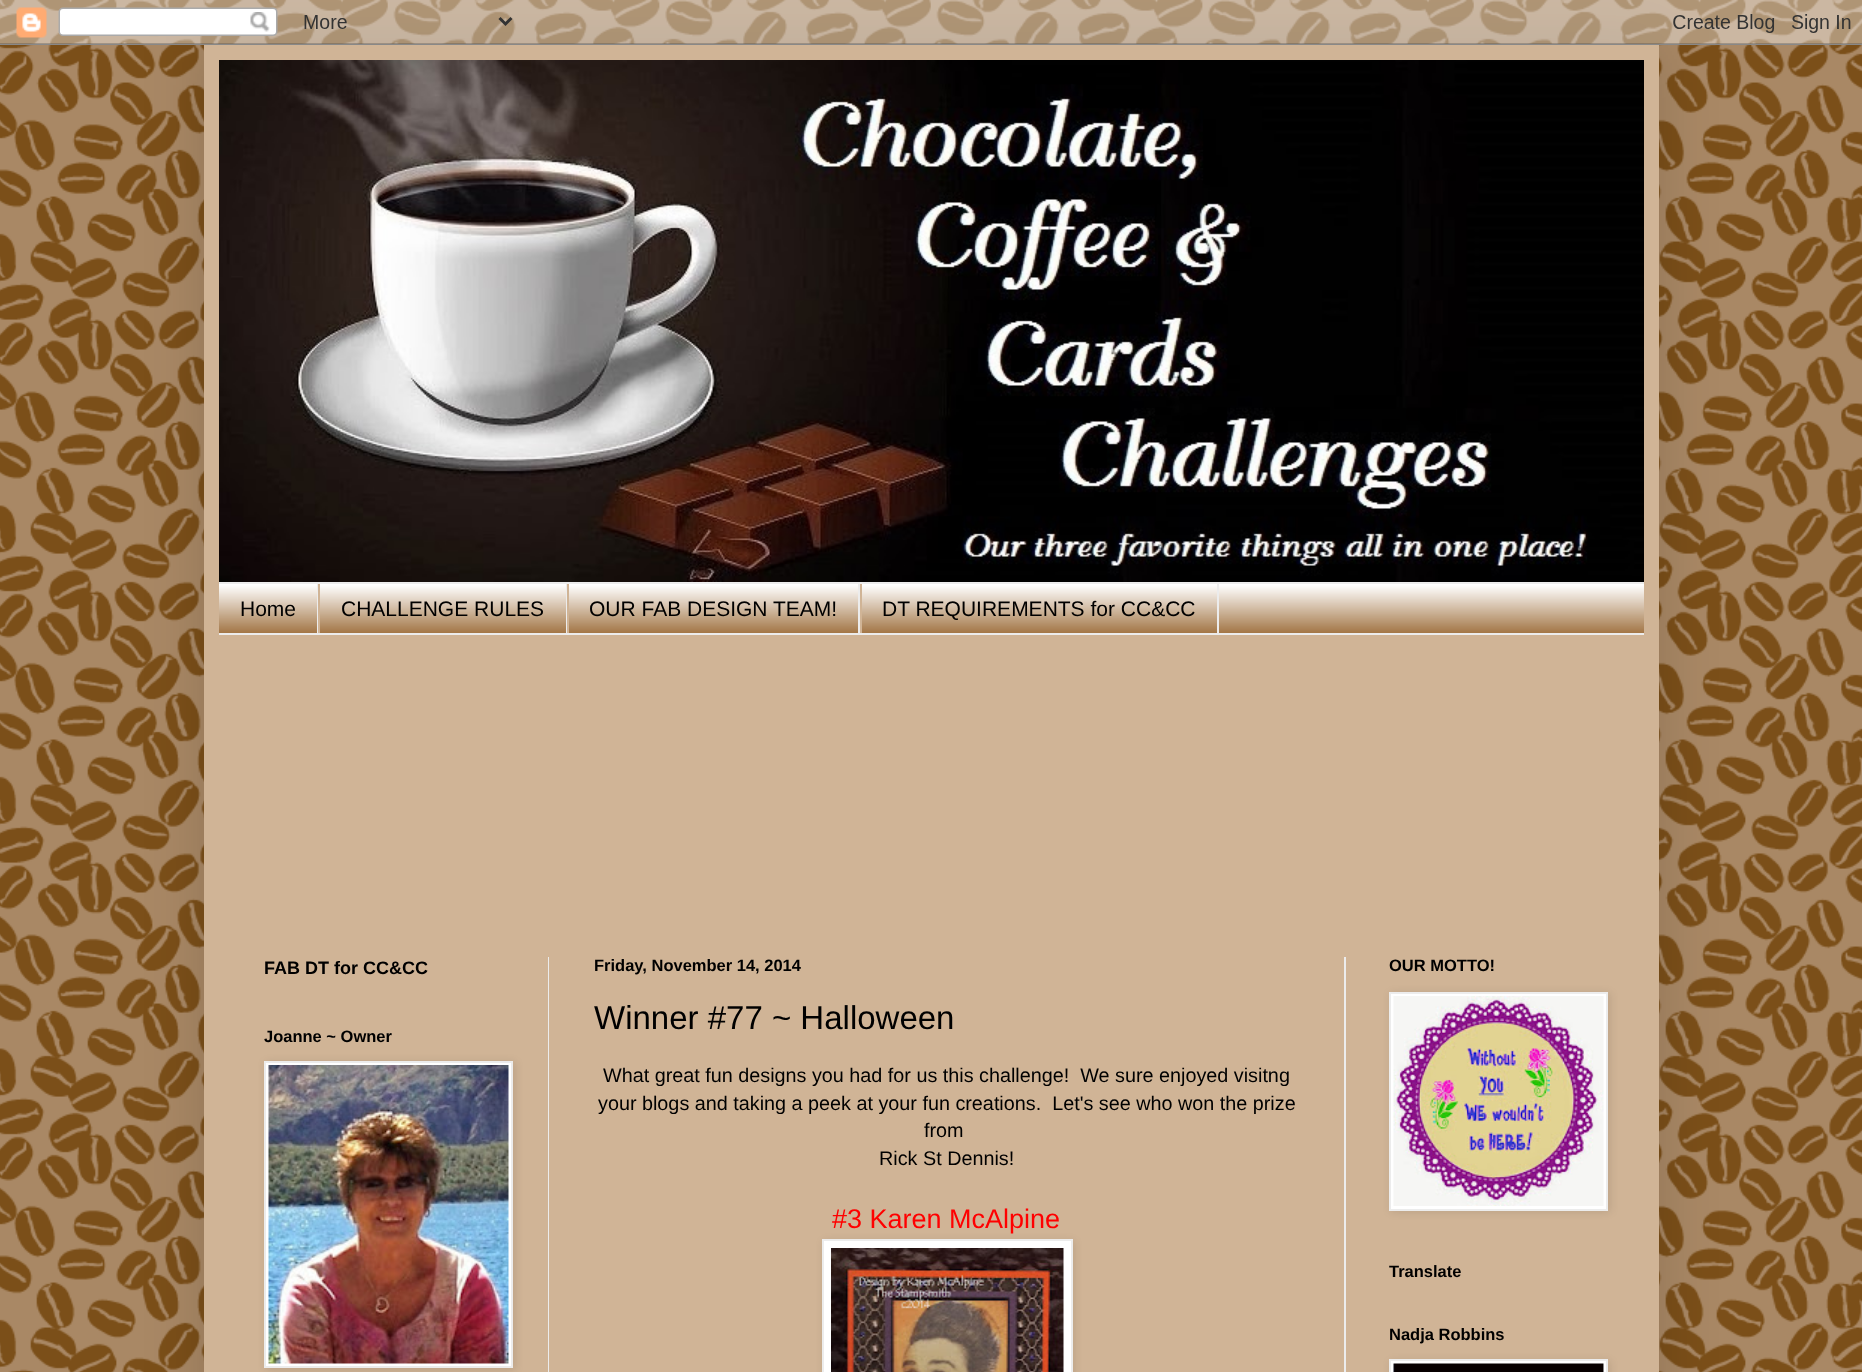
<svg xmlns="http://www.w3.org/2000/svg" width="1862" height="1372" viewBox="0 0 1862 1372">
  <rect width="100%" height="100%" fill="#fff"/>
  <image x="0" y="0" width="1862" height="1372" href="img/1.png"/>
  <path d="M204 45h1455v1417H204z" fill="#00000026" filter="blur(30px)"/>
  <image x="0" y="0" width="1862" height="45" href="img/2.png"/>
  <path d="M204 45h1455v1327H204z" fill="#d0b496"/>
  <image x="219" y="60" width="1425" height="522" href="img/3.png"/>
  <path d="M219 585h1425v48H219z" fill="#925d24"/>
  <image x="219" y="584" width="1425" height="49" href="img/4.png"/>
  <path d="M219 582h1425v2H219z" fill="#ececec"/>
  <path d="M219 633h1425v2H219z" fill="#ececec"/>
  <path d="M317 584h1v49H317z" fill="#ececec"/>
  <path d="M566 584h1v49H566z" fill="#ececec"/>
  <path d="M318 584h2v49H318z" fill="#d0b496"/>
  <path d="M858 584h2v49H858z" fill="#ececec"/>
  <path d="M567 584h2v49H567z" fill="#d0b496"/>
  <path d="M1217 584h2v49H1217z" fill="#ececec"/>
  <path d="M860 584h2v49H860z" fill="#d0b496"/>
  <path d="M548 957h1v415H548z" fill="#ececec"/>
  <path d="M1344 957h2v415H1344z" fill="#ececec"/>
  <path d="M266 1062h249v308H266z" fill="#0000001a" filter="blur(4px)"/>
  <path d="M265 1062h247v305H265z" fill="#fff" stroke="#ececec" stroke-width="2"/>
  <image x="268" y="1065" width="241" height="299" href="img/5.png"/>
  <path d="M824 1241h250v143H824z" fill="#0000001a" filter="blur(4px)"/>
  <path d="M823 1240h249v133H823z" fill="#fff" stroke="#ececec" stroke-width="2"/>
  <image x="831" y="1248" width="233" height="124" href="img/6.png"/>
  <path d="M1391 993h219v219H1391z" fill="#0000001a" filter="blur(4px)"/>
  <path d="M1390 993h217v217H1390z" fill="#fff" stroke="#ececec" stroke-width="2"/>
  <image x="1393" y="996" width="211" height="210" href="img/7.png"/>
  <path d="M1391 1361h219v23H1391z" fill="#0000001a" filter="blur(4px)"/>
  <path d="M1390 1360h217v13H1390z" fill="#fff" stroke="#ececec" stroke-width="2"/>
  <image x="1393" y="1363" width="211" height="9" href="img/8.png"/>
  <g font-family="Liberation Sans" font-size="21" fill="#000">
    <text x="240" y="616">Home</text>
    <text x="341" y="616">CHALLENGE RULES</text>
    <text x="589" y="616">OUR FAB DESIGN TEAM!</text>
    <text x="882" y="616">DT REQUIREMENTS for CC&amp;CC</text>
  </g>
  <text x="264" y="974" font-family="Liberation Sans" font-size="18" font-weight="bold" fill="#000">FAB DT for CC&amp;CC</text>
  <g font-family="Liberation Sans" font-size="16.5" font-weight="bold" fill="#000">
    <text x="264" y="1042">Joanne ~ Owner</text>
    <text x="594" y="971">Friday, November 14, 2014</text>
  </g>
  <text x="594" y="1029" font-family="Liberation Sans" font-size="33" fill="#000">Winner #77 ~ Halloween</text>
  <g font-family="Liberation Sans" font-size="19.8" fill="#000">
    <text x="603" y="1082" xml:space="preserve">What great fun designs you had for us this challenge!  We sure enjoyed visitng</text>
    <text x="598" y="1110" xml:space="preserve">your blogs and taking a peek at your fun creations.  Let's see who won the prize</text>
    <text x="924" y="1137">from</text>
    <text x="879" y="1165">Rick St Dennis!</text>
  </g>
  <text x="832" y="1228" font-family="Liberation Sans" font-size="27" fill="#f00">#3 Karen McAlpine</text>
  <g font-family="Liberation Sans" font-size="16.5" font-weight="bold" fill="#000">
    <text x="1389" y="971">OUR MOTTO!</text>
    <text x="1389" y="1277">Translate</text>
    <text x="1389" y="1340">Nadja Robbins</text>
  </g>
</svg>
